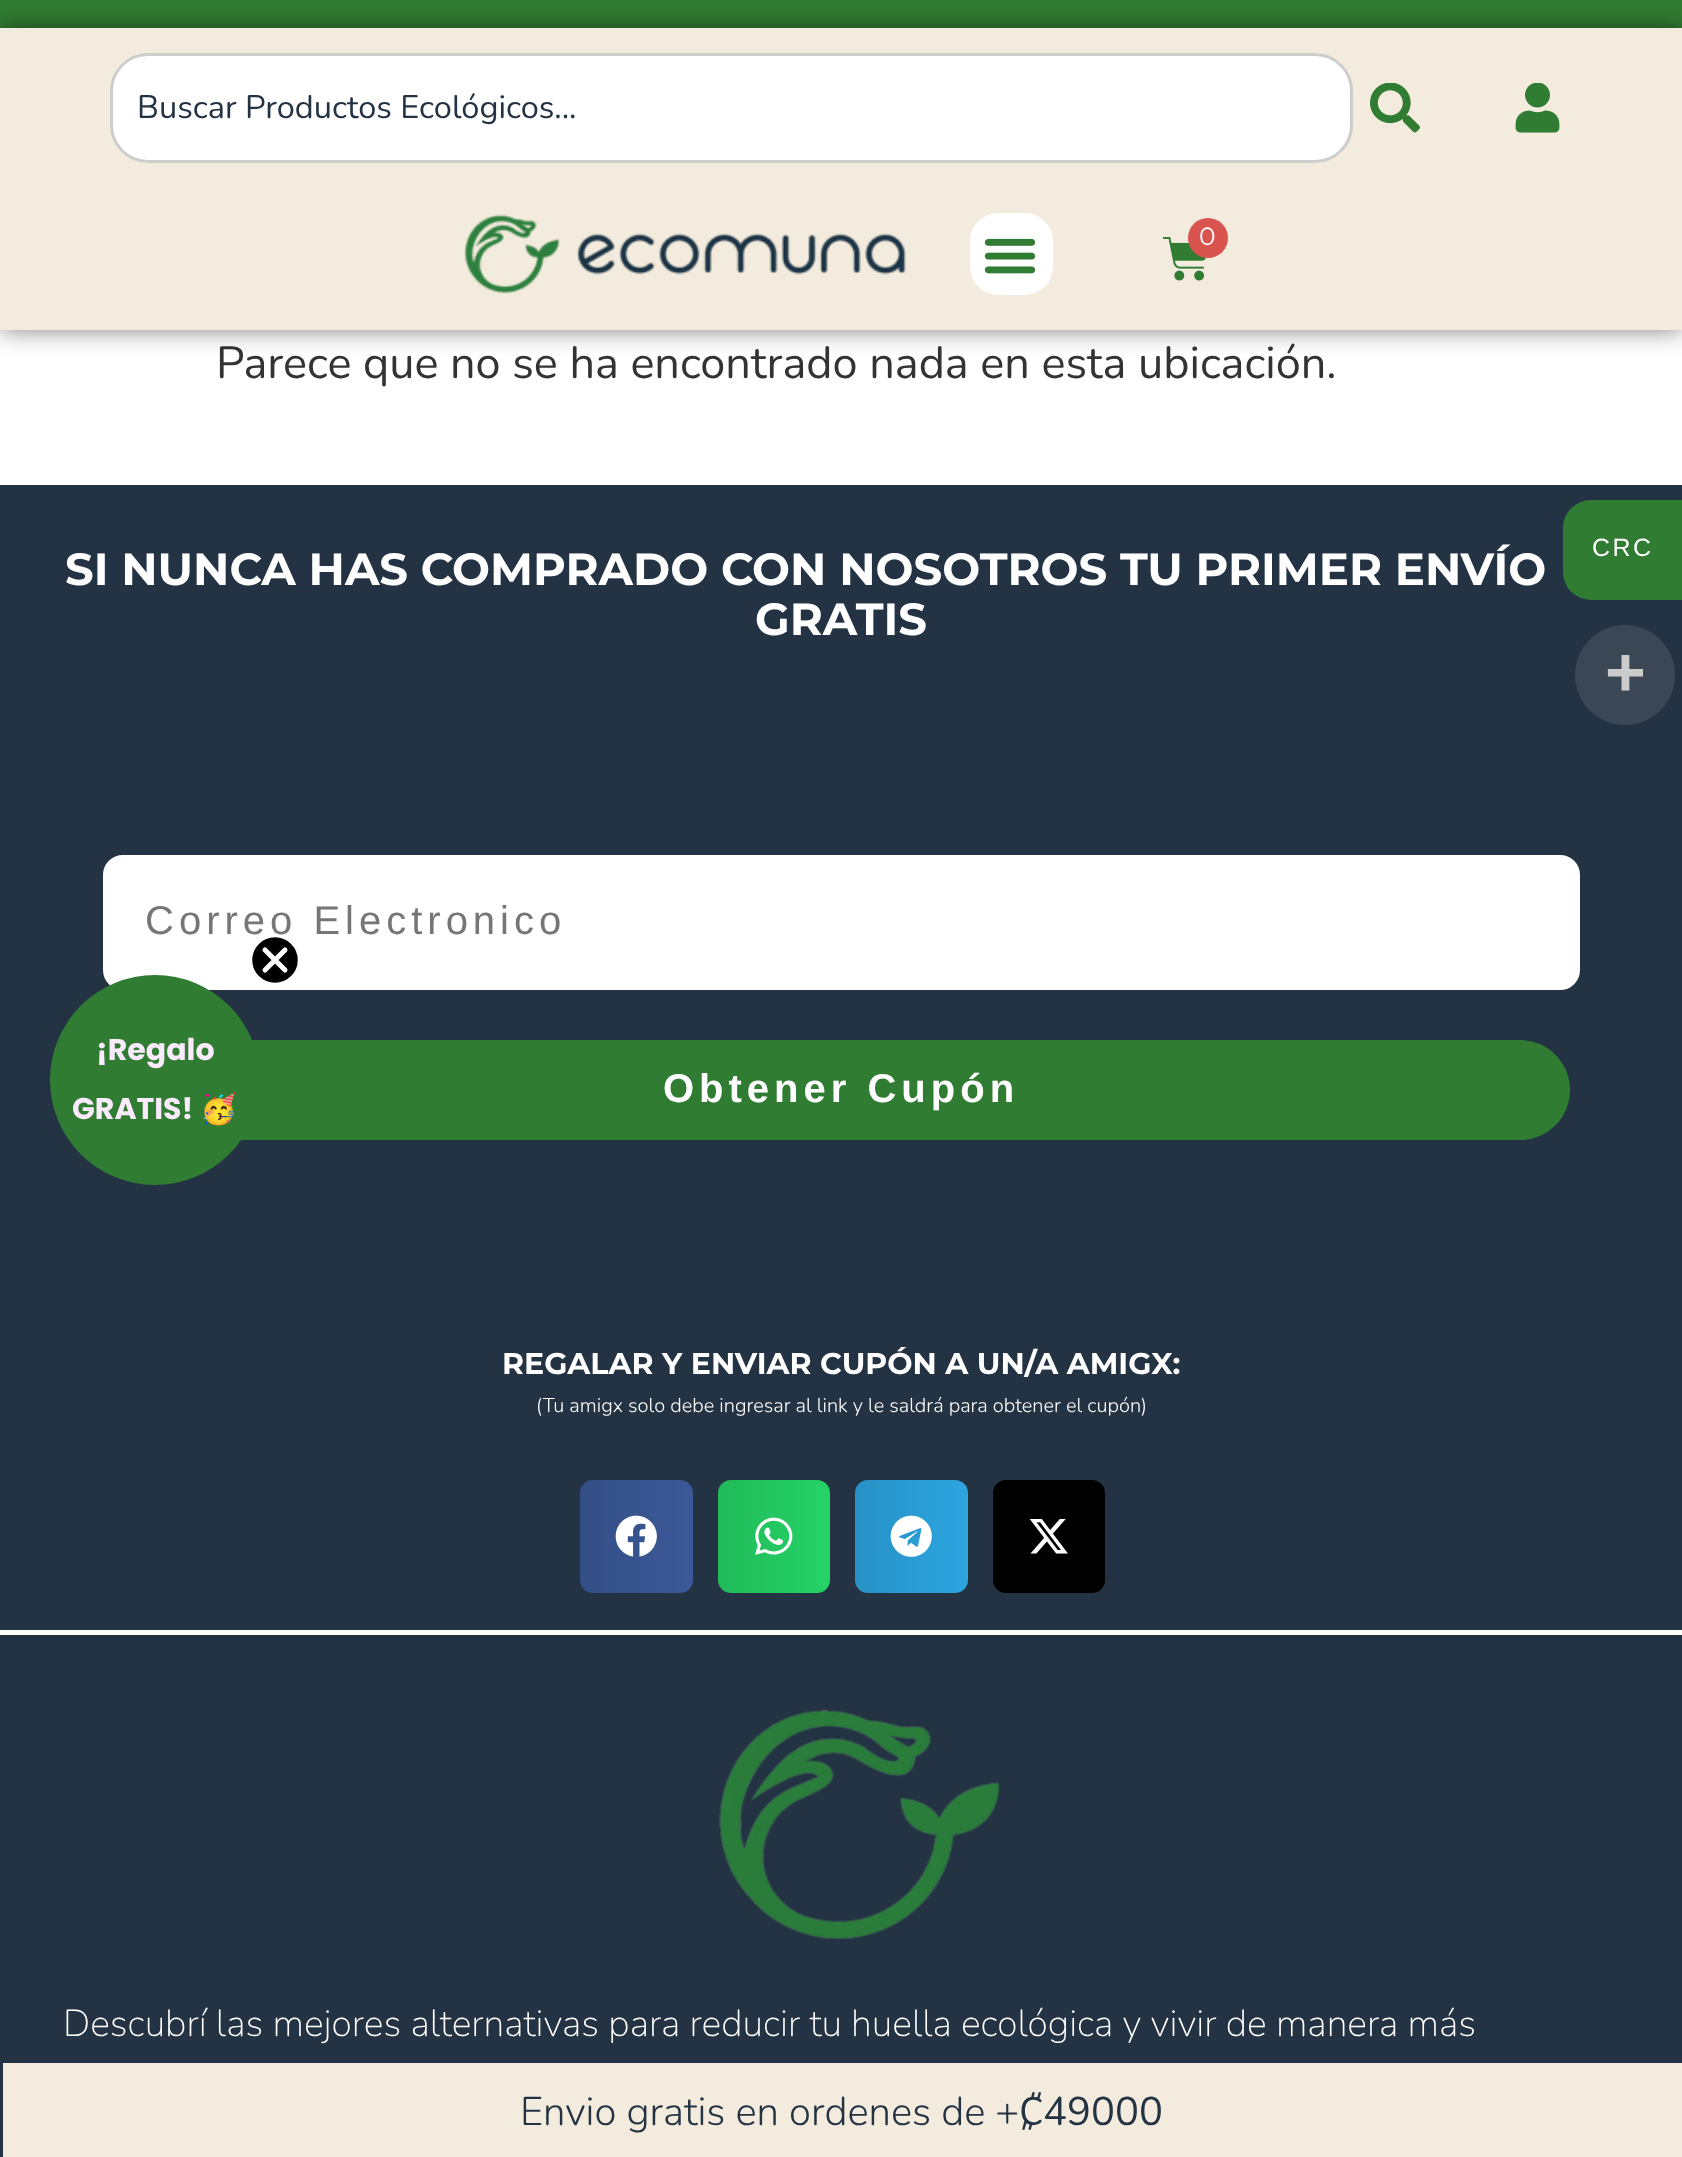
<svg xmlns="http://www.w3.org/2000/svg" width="1682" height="2157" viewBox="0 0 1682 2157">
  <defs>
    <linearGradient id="g1" gradientUnits="userSpaceOnUse" x1="580" y1="1536" x2="693" y2="1536"><stop offset="0" stop-color="#000" stop-opacity="0.12"/><stop offset="1" stop-color="#000" stop-opacity="0"/></linearGradient>
    <linearGradient id="g2" gradientUnits="userSpaceOnUse" x1="718" y1="1536" x2="830" y2="1536"><stop offset="0" stop-color="#000" stop-opacity="0.12"/><stop offset="1" stop-color="#000" stop-opacity="0"/></linearGradient>
    <linearGradient id="g3" gradientUnits="userSpaceOnUse" x1="855" y1="1536" x2="968" y2="1536"><stop offset="0" stop-color="#000" stop-opacity="0.12"/><stop offset="1" stop-color="#000" stop-opacity="0"/></linearGradient>
  </defs>
  <rect width="100%" height="100%" fill="#fff"/>
  <path d="M0 0h1682v28H0z" fill="#317c33"/>
  <path d="M0 28h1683v302H0z" fill="#00000080" filter="blur(12.5px)"/>
  <path d="M0 28h1682v302H0z" fill="#f3ebdd"/>
  <rect x="111.5" y="54.5" width="1240" height="107" rx="36.5" fill="#fff" stroke="#cdcdcd" stroke-width="3"/>
  <image x="1370" y="83" width="50" height="50" href="img/1.png"/>
  <image x="1515" y="83" width="45" height="50" href="img/2.png"/>
  <image x="464" y="214" width="443" height="80" href="img/3.png"/>
  <rect x="970" y="213" width="83" height="82" rx="28" fill="#fff"/>
  <image x="984" y="238" width="52" height="36" href="img/4.png"/>
  <image x="1163" y="237" width="44" height="44" href="img/5.png"/>
  <circle cx="1208" cy="238" r="20" fill="#d9534f"/>
  <path d="M0 485h1682v1145H0z" fill="#243344"/>
  <rect x="104.5" y="856.5" width="1474" height="132" rx="18.5" fill="#fff" stroke="#fff" stroke-width="3"/>
  <rect x="113" y="1040" width="1457" height="100" rx="50" fill="#317c33"/>
  <rect x="580" y="1480" width="113" height="113" rx="13" fill="#3b5998"/>
  <rect x="580" y="1480" width="113" height="113" rx="13" fill="url(#g1)"/>
  <image x="615" y="1515" width="42" height="42" href="img/6.png"/>
  <rect x="718" y="1480" width="112" height="113" rx="13" fill="#25d366"/>
  <rect x="718" y="1480" width="112" height="113" rx="13" fill="url(#g2)"/>
  <image x="755" y="1517" width="38" height="38" href="img/7.png"/>
  <rect x="855" y="1480" width="113" height="113" rx="13" fill="#2ca5e0"/>
  <rect x="855" y="1480" width="113" height="113" rx="13" fill="url(#g3)"/>
  <image x="890" y="1515" width="42" height="42" href="img/8.png"/>
  <rect x="993" y="1480" width="112" height="113" rx="13" fill="#000"/>
  <image x="1029" y="1519" width="39" height="35" href="img/9.png"/>
  <path d="M0 1635h1682v522H0z" fill="#243344"/>
  <image x="719" y="1709" width="281" height="230" href="img/10.png"/>
  <rect x="1563" y="500" width="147" height="100" rx="28" fill="#317c33"/>
  <circle cx="1625" cy="675" r="50" fill="#3b4755"/>
  <circle cx="155" cy="1080" r="105" fill="#317c33"/>
  <path d="M3 2063h1679v94H3z" fill="#f3ebdd"/>
  <text x="137" y="118" font-family="Nunito" font-size="32.5" fill="#243344">Buscar Productos Ecológicos...</text>
  <text x="1199" y="245" font-family="Montserrat" font-size="25" fill="#fff">0</text>
  <text x="216" y="378" font-family="Nunito" font-size="45" fill="#333">Parece que no se ha encontrado nada en esta ubicación.</text>
  <g font-family="Montserrat" font-size="45" font-weight="bold" fill="#fff">
    <text x="65" y="585">SI NUNCA HAS COMPRADO CON NOSOTROS TU PRIMER ENVÍO</text>
    <text x="755" y="635">GRATIS</text>
  </g>
  <text x="145" y="934" font-family="Liberation Sans" font-size="40" letter-spacing="5" fill="#767676">Correo Electronico</text>
  <text x="663" y="1102" font-family="Liberation Sans" font-size="40" font-weight="bold" letter-spacing="5" fill="#fff">Obtener Cupón</text>
  <text x="502" y="1374" font-family="Montserrat" font-size="30" font-weight="bold" fill="#fff">REGALAR Y ENVIAR CUPÓN A UN/A AMIGX:</text>
  <text x="536" y="1412" font-family="Nunito" font-size="20" font-weight="300" fill="#fff">(Tu amigx solo debe ingresar al link y le saldrá para obtener el cupón)</text>
  <text x="63" y="2036" font-family="Nunito" font-size="37.5" font-weight="200" fill="#fff">Descubrí las mejores alternativas para reducir tu huella ecológica y vivir de manera más</text>
  <text x="1592" y="556" font-family="Liberation Sans" font-size="25" letter-spacing="2.5" fill="#fff">CRC</text>
  <text x="1605" y="696" font-family="Liberation Sans" font-size="70" font-weight="bold" fill="#ccc">+</text>
  <circle cx="275" cy="960" r="24" fill="#000" stroke="#fff" stroke-width="2.5"/>
  <path d="M265 950L285 970M265 970L285 950Z" fill="none" stroke="#fff" stroke-width="5" stroke-linecap="round" stroke-linejoin="round"/>
  <g font-family="Poppins" font-size="30" font-weight="bold" fill="#faebfc">
    <text x="96" y="1060">¡Regalo</text>
    <text x="72" y="1119">GRATIS!</text>
  </g>
  <text x="200" y="1119" font-family="Noto Color Emoji" font-size="30" font-weight="bold" fill="#faebfc">🥳</text>
  <text x="520" y="2125" font-family="Nunito" font-size="40" font-weight="300" fill="#243344">Envio gratis en ordenes de +</text>
  <text x="1019" y="2125" font-family="Nunito" font-size="40" fill="#243344">₡49000</text>
</svg>
